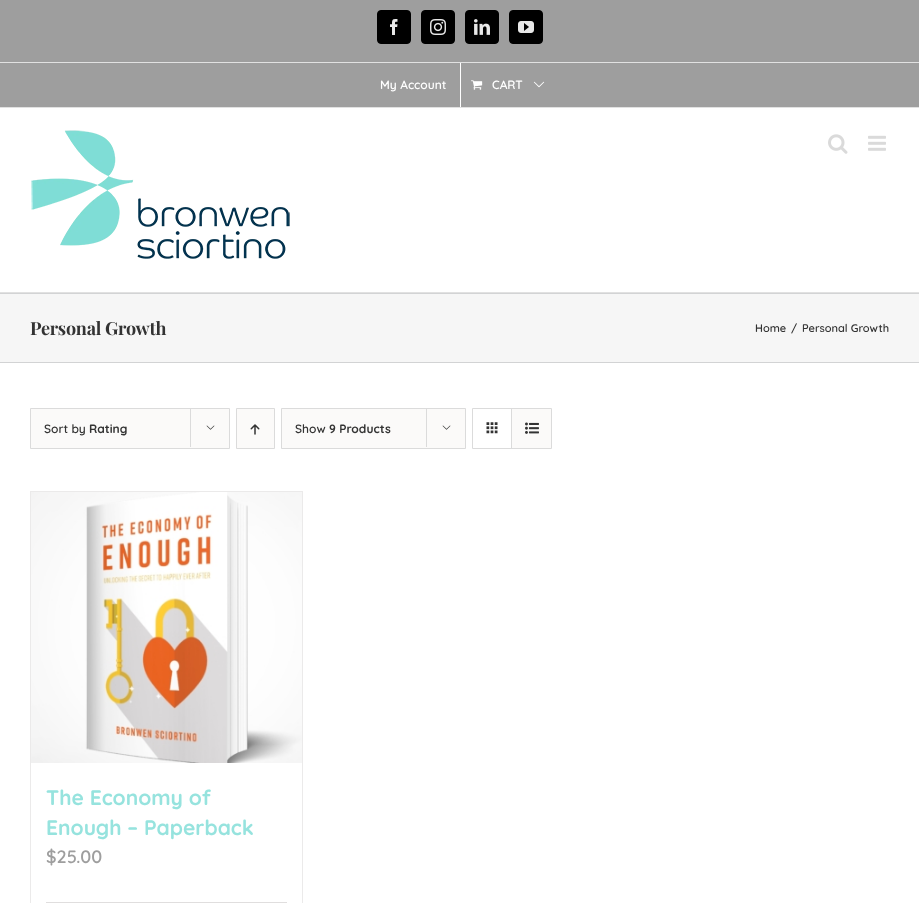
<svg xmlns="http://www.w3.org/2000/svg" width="919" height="903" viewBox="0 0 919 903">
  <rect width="100%" height="100%" fill="#fff"/>
  <path d="M0 0h919v107H0z" fill="#9e9e9e"/>
  <path d="M0 107h919v1H0z" fill="#e1e1e1"/>
  <path d="M0 62h919v1H0z" fill="#e1e1e1"/>
  <rect x="377.5" y="10.5" width="33" height="33" rx="3.5" fill="#000" stroke="#000"/>
  <image x="390" y="19" width="8" height="16" href="img/1.png"/>
  <rect x="421.5" y="10.5" width="33" height="33" rx="3.5" fill="#000" stroke="#000"/>
  <image x="430" y="19" width="16" height="16" href="img/2.png"/>
  <rect x="465.5" y="10.5" width="33" height="33" rx="3.5" fill="#000" stroke="#000"/>
  <image x="474" y="19" width="16" height="16" href="img/3.png"/>
  <rect x="509.5" y="10.5" width="33" height="33" rx="3.5" fill="#000" stroke="#000"/>
  <image x="518" y="21" width="16" height="12" href="img/4.png"/>
  <path d="M460 63h1v44H460z" fill="#fff"/>
  <image x="471" y="80" width="12" height="10" href="img/5.png"/>
  <image x="533" y="81" width="12" height="7" href="img/6.png"/>
  <path d="M0 292h919v1H0z" fill="#e1e1e1"/>
  <image x="31" y="130" width="259" height="129" href="img/7.png"/>
  <image x="828" y="134" width="20" height="20" href="img/8.png"/>
  <image x="868" y="135" width="18" height="16" href="img/9.png"/>
  <path d="M0 294h919v68H0z" fill="#f6f6f6"/>
  <path d="M0 293h919v1H0z" fill="#d2d3d4"/>
  <path d="M0 362h919v1H0z" fill="#d2d3d4"/>
  <path d="M30.5 408.5h199v40H30.5z" fill="#fbfaf9" stroke="#dbdbdb"/>
  <path d="M190 408h1v39H190z" fill="#dbdbdb"/>
  <image x="206" y="425" width="9" height="5" href="img/10.png"/>
  <path d="M236.5 408.5h38v40H236.5z" fill="#fbfaf9" stroke="#dbdbdb"/>
  <image x="250" y="424" width="10" height="11" href="img/11.png"/>
  <path d="M281.5 408.5h184v40H281.5z" fill="#fbfaf9" stroke="#dbdbdb"/>
  <path d="M426 408h1v39H426z" fill="#dbdbdb"/>
  <image x="442" y="425" width="9" height="5" href="img/10.png"/>
  <path d="M472.5 408.5h79v40H472.5z" fill="none" stroke="#dbdbdb"/>
  <path d="M511 409h1v39H511z" fill="#dbdbdb"/>
  <image x="486" y="422" width="12" height="12" href="img/12.png"/>
  <path d="M512 409h39v39H512z" fill="#fbfaf9"/>
  <image x="525" y="422" width="14" height="12" href="img/13.png"/>
  <path d="M30 491h273v1H30z" fill="#ebeaea"/>
  <path d="M302 491h1v412H302z" fill="#ebeaea"/>
  <path d="M30 491h1v412H30z" fill="#ebeaea"/>
  <image x="31" y="492" width="271" height="271" href="img/14.png"/>
  <path d="M46 902h241v1H46z" fill="#e0dede"/>
  <g font-family="Quicksand" font-size="12" font-weight="600" fill="#fff">
    <text x="380" y="89">My Account</text>
    <text x="492" y="89">CART</text>
  </g>
  <text x="30" y="335" font-family="Playfair Display" font-size="18" font-weight="bold" letter-spacing="-0.25" fill="#333">Personal Growth</text>
  <g font-family="Quicksand" font-size="11" font-weight="600" fill="#333">
    <text x="755" y="332">Home</text>
    <text x="791" y="332">/</text>
    <text x="802" y="332">Personal Growth</text>
  </g>
  <text x="44" y="433" font-family="Quicksand" font-size="12" font-weight="600" fill="#333">Sort by</text>
  <text x="89" y="433" font-family="Quicksand" font-size="12" font-weight="bold" fill="#333">Rating</text>
  <text x="295" y="433" font-family="Quicksand" font-size="12" font-weight="600" fill="#333">Show</text>
  <text x="329" y="433" font-family="Quicksand" font-size="12" font-weight="bold" fill="#333">9 Products</text>
  <g font-family="Quicksand" font-size="21" font-weight="bold" fill="#96e3de">
    <text x="46" y="805">The Economy of</text>
    <text x="46" y="835">Enough – Paperback</text>
  </g>
  <text x="46" y="863" font-family="Quicksand" font-size="18" font-weight="600" fill="#9e9e9e">$25.00</text>
</svg>
